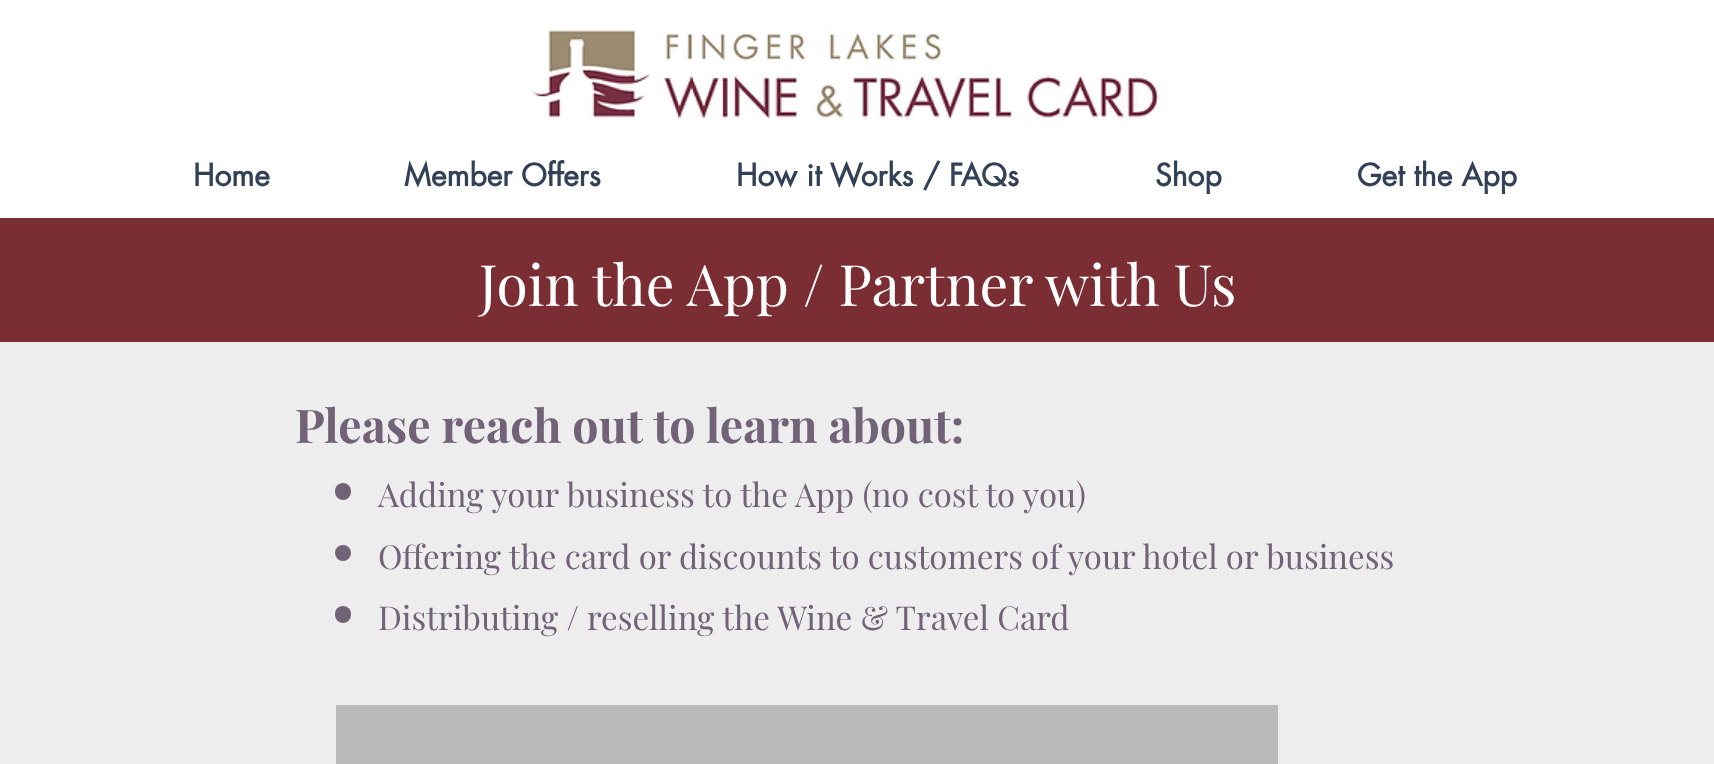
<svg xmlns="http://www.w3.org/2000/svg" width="1714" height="764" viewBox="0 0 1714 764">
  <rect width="100%" height="100%" fill="#fff"/>
  <image x="532" y="29" width="627" height="91" href="img/1.png"/>
  <path d="M0 218h1714v124H0z" fill="#7b2d34"/>
  <path d="M0 342h1714v422H0z" fill="#ededee"/>
  <rect x="335" y="483" width="16" height="17" rx="8" fill="#726277"/>
  <circle cx="343" cy="553" r="8" fill="#726277"/>
  <rect x="335" y="606" width="16" height="17" rx="8" fill="#726277"/>
  <path d="M336 705h942v59H336z" fill="#babab9"/>
  <g font-family="futura" font-size="30" font-weight="bold" fill="#324158">
    <text x="193" y="186">Home</text>
    <text x="404" y="186">Member Offers</text>
    <text x="736" y="186">How it Works / FAQs</text>
    <text x="1155" y="186">Shop</text>
    <text x="1357" y="186">Get the App</text>
  </g>
  <text x="479" y="306" font-family="Playfair Display" font-size="57" fill="#fff">Join the App / Partner with Us</text>
  <text x="295" y="443" font-family="Playfair Display" font-size="46.5" font-weight="bold" fill="#726277">Please reach out to learn about:</text>
  <g font-family="Playfair Display" font-size="33" fill="#726277">
    <text x="378" y="507">Adding your business to the App (no cost to you)</text>
    <text x="378" y="569">Offering the card or discounts to customers of your hotel or business</text>
    <text x="378" y="630">Distributing / reselling the Wine &amp; Travel Card</text>
  </g>
</svg>
